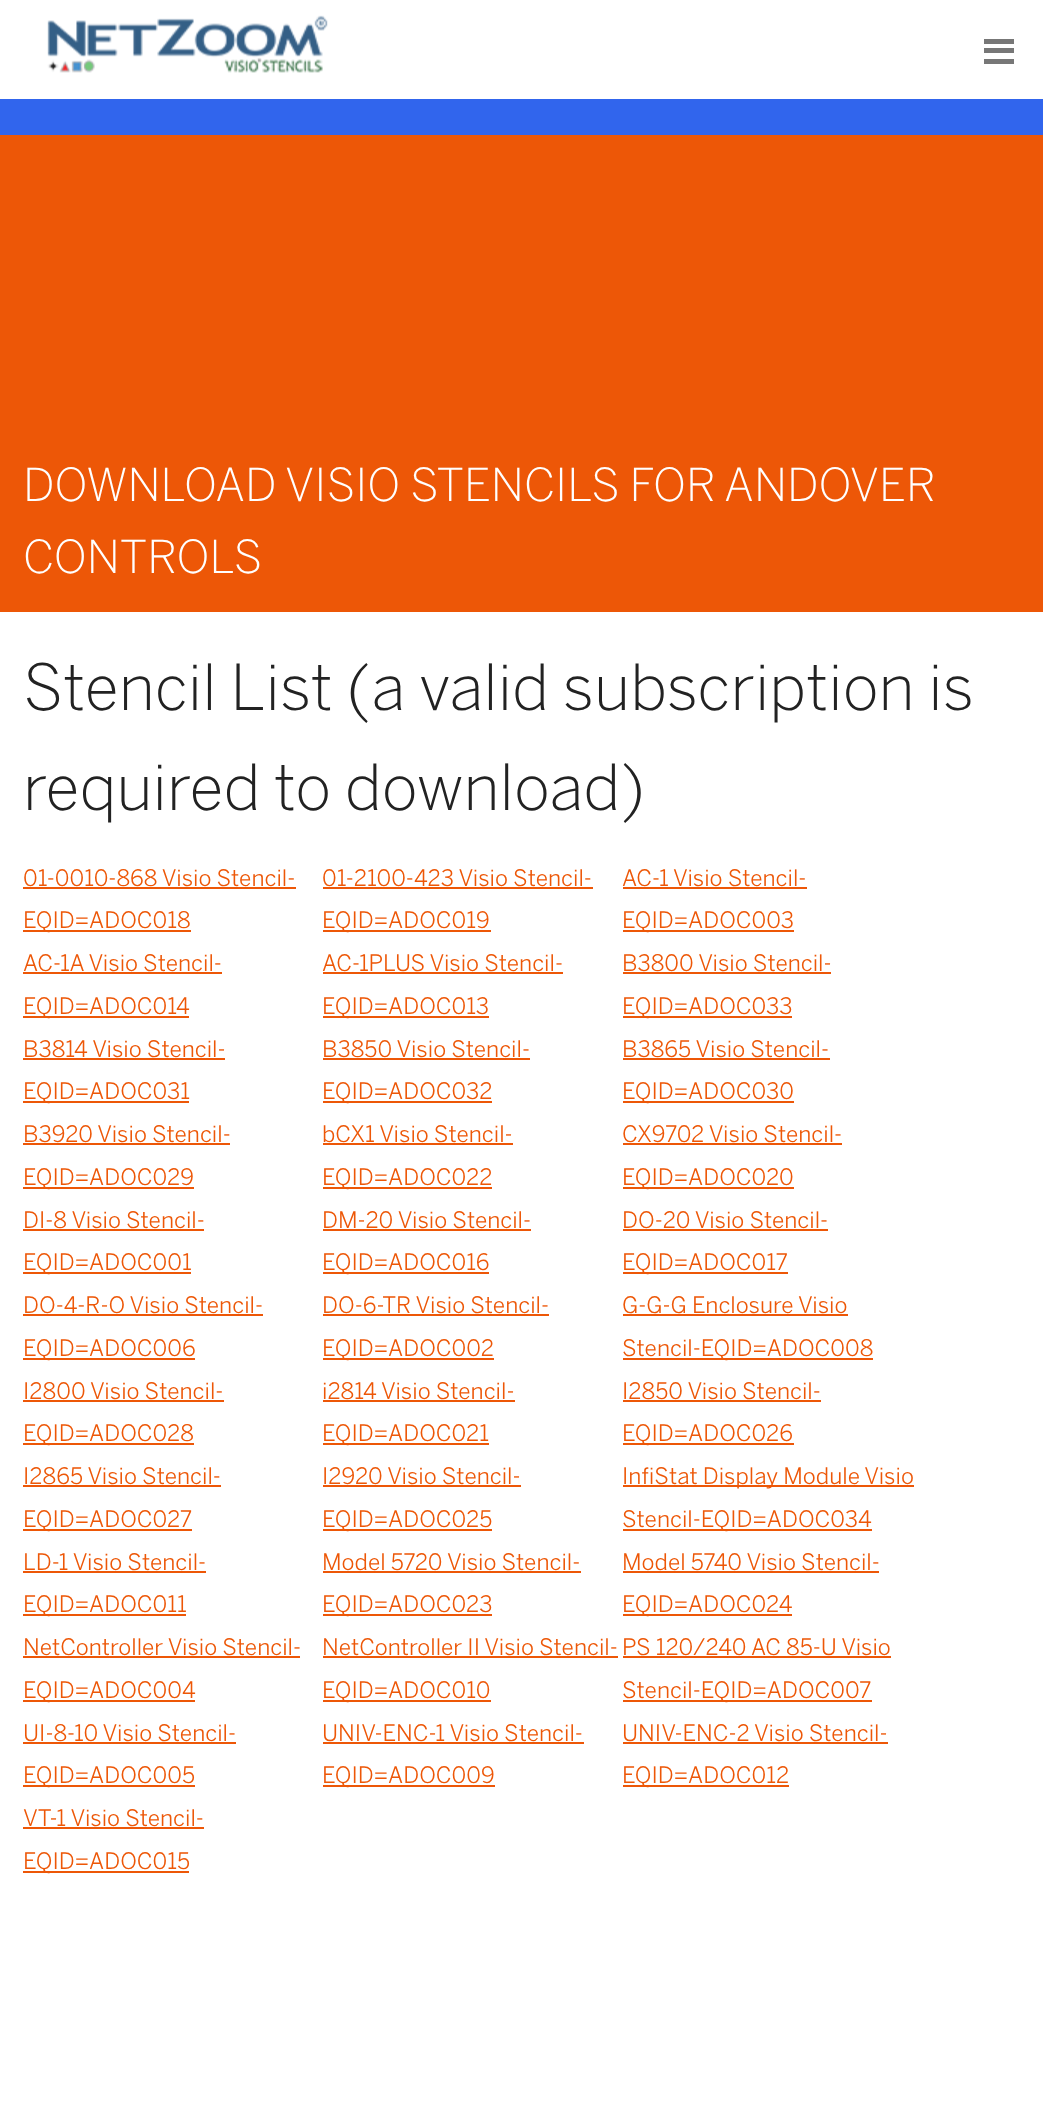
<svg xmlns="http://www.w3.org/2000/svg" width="1043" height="2121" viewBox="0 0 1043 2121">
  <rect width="100%" height="100%" fill="#fff"/>
  <image x="47" y="15" width="281" height="58" href="img/1.png"/>
  <path d="M984 39h30v5H984z" fill="#777"/>
  <path d="M984 48h30v5H984z" fill="#777"/>
  <path d="M984 59h30v5H984z" fill="#777"/>
  <path d="M0 99h1043v36H0z" fill="#3165ed"/>
  <path d="M0 135h1043v477H0z" fill="#ed5707"/>
  <path d="M23 887h273v2H23z" fill="#ed5707"/>
  <path d="M23 930h168v2H23z" fill="#ed5707"/>
  <path d="M323 887h270v2H323z" fill="#ed5707"/>
  <path d="M323 930h168v2H323z" fill="#ed5707"/>
  <path d="M623 887h184v2H623z" fill="#ed5707"/>
  <path d="M623 930h171v2H623z" fill="#ed5707"/>
  <path d="M23 972h199v2H23z" fill="#ed5707"/>
  <path d="M23 1016h166v2H23z" fill="#ed5707"/>
  <path d="M323 972h240v2H323z" fill="#ed5707"/>
  <path d="M323 1016h166v2H323z" fill="#ed5707"/>
  <path d="M623 972h208v2H623z" fill="#ed5707"/>
  <path d="M623 1016h169v2H623z" fill="#ed5707"/>
  <path d="M23 1058h202v2H23z" fill="#ed5707"/>
  <path d="M23 1101h166v2H23z" fill="#ed5707"/>
  <path d="M323 1058h207v2H323z" fill="#ed5707"/>
  <path d="M323 1101h169v2H323z" fill="#ed5707"/>
  <path d="M623 1058h207v2H623z" fill="#ed5707"/>
  <path d="M623 1101h171v2H623z" fill="#ed5707"/>
  <path d="M23 1143h207v2H23z" fill="#ed5707"/>
  <path d="M23 1187h171v2H23z" fill="#ed5707"/>
  <path d="M323 1143h190v2H323z" fill="#ed5707"/>
  <path d="M323 1187h169v2H323z" fill="#ed5707"/>
  <path d="M623 1143h219v2H623z" fill="#ed5707"/>
  <path d="M623 1187h171v2H623z" fill="#ed5707"/>
  <path d="M23 1229h181v2H23z" fill="#ed5707"/>
  <path d="M23 1272h168v2H23z" fill="#ed5707"/>
  <path d="M323 1229h208v2H323z" fill="#ed5707"/>
  <path d="M323 1272h166v2H323z" fill="#ed5707"/>
  <path d="M623 1229h205v2H623z" fill="#ed5707"/>
  <path d="M623 1272h165v2H623z" fill="#ed5707"/>
  <path d="M23 1314h240v2H23z" fill="#ed5707"/>
  <path d="M23 1358h172v2H23z" fill="#ed5707"/>
  <path d="M323 1314h226v2H323z" fill="#ed5707"/>
  <path d="M323 1358h171v2H323z" fill="#ed5707"/>
  <path d="M623 1314h225v2H623z" fill="#ed5707"/>
  <path d="M623 1358h250v2H623z" fill="#ed5707"/>
  <path d="M23 1400h201v2H23z" fill="#ed5707"/>
  <path d="M23 1443h171v2H23z" fill="#ed5707"/>
  <path d="M323 1400h192v2H323z" fill="#ed5707"/>
  <path d="M323 1443h166v2H323z" fill="#ed5707"/>
  <path d="M623 1400h198v2H623z" fill="#ed5707"/>
  <path d="M623 1443h171v2H623z" fill="#ed5707"/>
  <path d="M23 1485h198v2H23z" fill="#ed5707"/>
  <path d="M23 1529h169v2H23z" fill="#ed5707"/>
  <path d="M323 1485h198v2H323z" fill="#ed5707"/>
  <path d="M323 1529h169v2H323z" fill="#ed5707"/>
  <path d="M623 1485h291v2H623z" fill="#ed5707"/>
  <path d="M623 1529h249v2H623z" fill="#ed5707"/>
  <path d="M23 1571h183v2H23z" fill="#ed5707"/>
  <path d="M23 1614h163v2H23z" fill="#ed5707"/>
  <path d="M323 1571h258v2H323z" fill="#ed5707"/>
  <path d="M323 1614h169v2H323z" fill="#ed5707"/>
  <path d="M623 1571h256v2H623z" fill="#ed5707"/>
  <path d="M623 1614h169v2H623z" fill="#ed5707"/>
  <path d="M23 1656h277v2H23z" fill="#ed5707"/>
  <path d="M23 1700h172v2H23z" fill="#ed5707"/>
  <path d="M323 1656h295v2H323z" fill="#ed5707"/>
  <path d="M323 1700h168v2H323z" fill="#ed5707"/>
  <path d="M623 1656h268v2H623z" fill="#ed5707"/>
  <path d="M623 1700h249v2H623z" fill="#ed5707"/>
  <path d="M23 1742h213v2H23z" fill="#ed5707"/>
  <path d="M23 1785h172v2H23z" fill="#ed5707"/>
  <path d="M323 1742h261v2H323z" fill="#ed5707"/>
  <path d="M323 1785h172v2H323z" fill="#ed5707"/>
  <path d="M623 1742h265v2H623z" fill="#ed5707"/>
  <path d="M623 1785h166v2H623z" fill="#ed5707"/>
  <path d="M23 1827h181v2H23z" fill="#ed5707"/>
  <path d="M23 1871h166v2H23z" fill="#ed5707"/>
  <g font-family="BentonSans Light" font-size="45" font-weight="300" fill="#fff">
    <text x="23" y="501">DOWNLOAD VISIO STENCILS FOR ANDOVER</text>
    <text x="23" y="573">CONTROLS</text>
  </g>
  <g font-family="BentonSans Light" font-size="63" font-weight="300" fill="#222">
    <text x="23" y="710">Stencil List (a valid subscription is</text>
    <text x="23" y="810">required to download)</text>
  </g>
  <g font-family="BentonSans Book" font-size="22.5" fill="#ed5707">
    <text x="23" y="886">01-0010-868 Visio Stencil-</text>
    <text x="23" y="928">EQID=ADOC018</text>
    <text x="322" y="886">01-2100-423 Visio Stencil-</text>
    <text x="322" y="928">EQID=ADOC019</text>
    <text x="622" y="886">AC-1 Visio Stencil-</text>
    <text x="622" y="928">EQID=ADOC003</text>
    <text x="23" y="971">AC-1A Visio Stencil-</text>
    <text x="23" y="1014">EQID=ADOC014</text>
    <text x="322" y="971">AC-1PLUS Visio Stencil-</text>
    <text x="322" y="1014">EQID=ADOC013</text>
    <text x="622" y="971">B3800 Visio Stencil-</text>
    <text x="622" y="1014">EQID=ADOC033</text>
    <text x="23" y="1057">B3814 Visio Stencil-</text>
    <text x="23" y="1099">EQID=ADOC031</text>
    <text x="322" y="1057">B3850 Visio Stencil-</text>
    <text x="322" y="1099">EQID=ADOC032</text>
    <text x="622" y="1057">B3865 Visio Stencil-</text>
    <text x="622" y="1099">EQID=ADOC030</text>
    <text x="23" y="1142">B3920 Visio Stencil-</text>
    <text x="23" y="1185">EQID=ADOC029</text>
    <text x="322" y="1142">bCX1 Visio Stencil-</text>
    <text x="322" y="1185">EQID=ADOC022</text>
    <text x="622" y="1142">CX9702 Visio Stencil-</text>
    <text x="622" y="1185">EQID=ADOC020</text>
    <text x="23" y="1228">DI-8 Visio Stencil-</text>
    <text x="23" y="1270">EQID=ADOC001</text>
    <text x="322" y="1228">DM-20 Visio Stencil-</text>
    <text x="322" y="1270">EQID=ADOC016</text>
    <text x="622" y="1228">DO-20 Visio Stencil-</text>
    <text x="622" y="1270">EQID=ADOC017</text>
    <text x="23" y="1313">DO-4-R-O Visio Stencil-</text>
    <text x="23" y="1356">EQID=ADOC006</text>
    <text x="322" y="1313">DO-6-TR Visio Stencil-</text>
    <text x="322" y="1356">EQID=ADOC002</text>
    <text x="622" y="1313">G-G-G Enclosure Visio</text>
    <text x="622" y="1356">Stencil-EQID=ADOC008</text>
    <text x="23" y="1399">I2800 Visio Stencil-</text>
    <text x="23" y="1441">EQID=ADOC028</text>
    <text x="322" y="1399">i2814 Visio Stencil-</text>
    <text x="322" y="1441">EQID=ADOC021</text>
    <text x="622" y="1399">I2850 Visio Stencil-</text>
    <text x="622" y="1441">EQID=ADOC026</text>
    <text x="23" y="1484">I2865 Visio Stencil-</text>
    <text x="23" y="1527">EQID=ADOC027</text>
    <text x="322" y="1484">I2920 Visio Stencil-</text>
    <text x="322" y="1527">EQID=ADOC025</text>
    <text x="622" y="1484">InfiStat Display Module Visio</text>
    <text x="622" y="1527">Stencil-EQID=ADOC034</text>
    <text x="23" y="1570">LD-1 Visio Stencil-</text>
    <text x="23" y="1612">EQID=ADOC011</text>
    <text x="322" y="1570">Model 5720 Visio Stencil-</text>
    <text x="322" y="1612">EQID=ADOC023</text>
    <text x="622" y="1570">Model 5740 Visio Stencil-</text>
    <text x="622" y="1612">EQID=ADOC024</text>
    <text x="23" y="1655">NetController Visio Stencil-</text>
    <text x="23" y="1698">EQID=ADOC004</text>
    <text x="322" y="1655">NetController II Visio Stencil-</text>
    <text x="322" y="1698">EQID=ADOC010</text>
    <text x="622" y="1655">PS 120/240 AC 85-U Visio</text>
    <text x="622" y="1698">Stencil-EQID=ADOC007</text>
    <text x="23" y="1741">UI-8-10 Visio Stencil-</text>
    <text x="23" y="1783">EQID=ADOC005</text>
    <text x="322" y="1741">UNIV-ENC-1 Visio Stencil-</text>
    <text x="322" y="1783">EQID=ADOC009</text>
    <text x="622" y="1741">UNIV-ENC-2 Visio Stencil-</text>
    <text x="622" y="1783">EQID=ADOC012</text>
    <text x="23" y="1826">VT-1 Visio Stencil-</text>
    <text x="23" y="1869">EQID=ADOC015</text>
  </g>
</svg>
